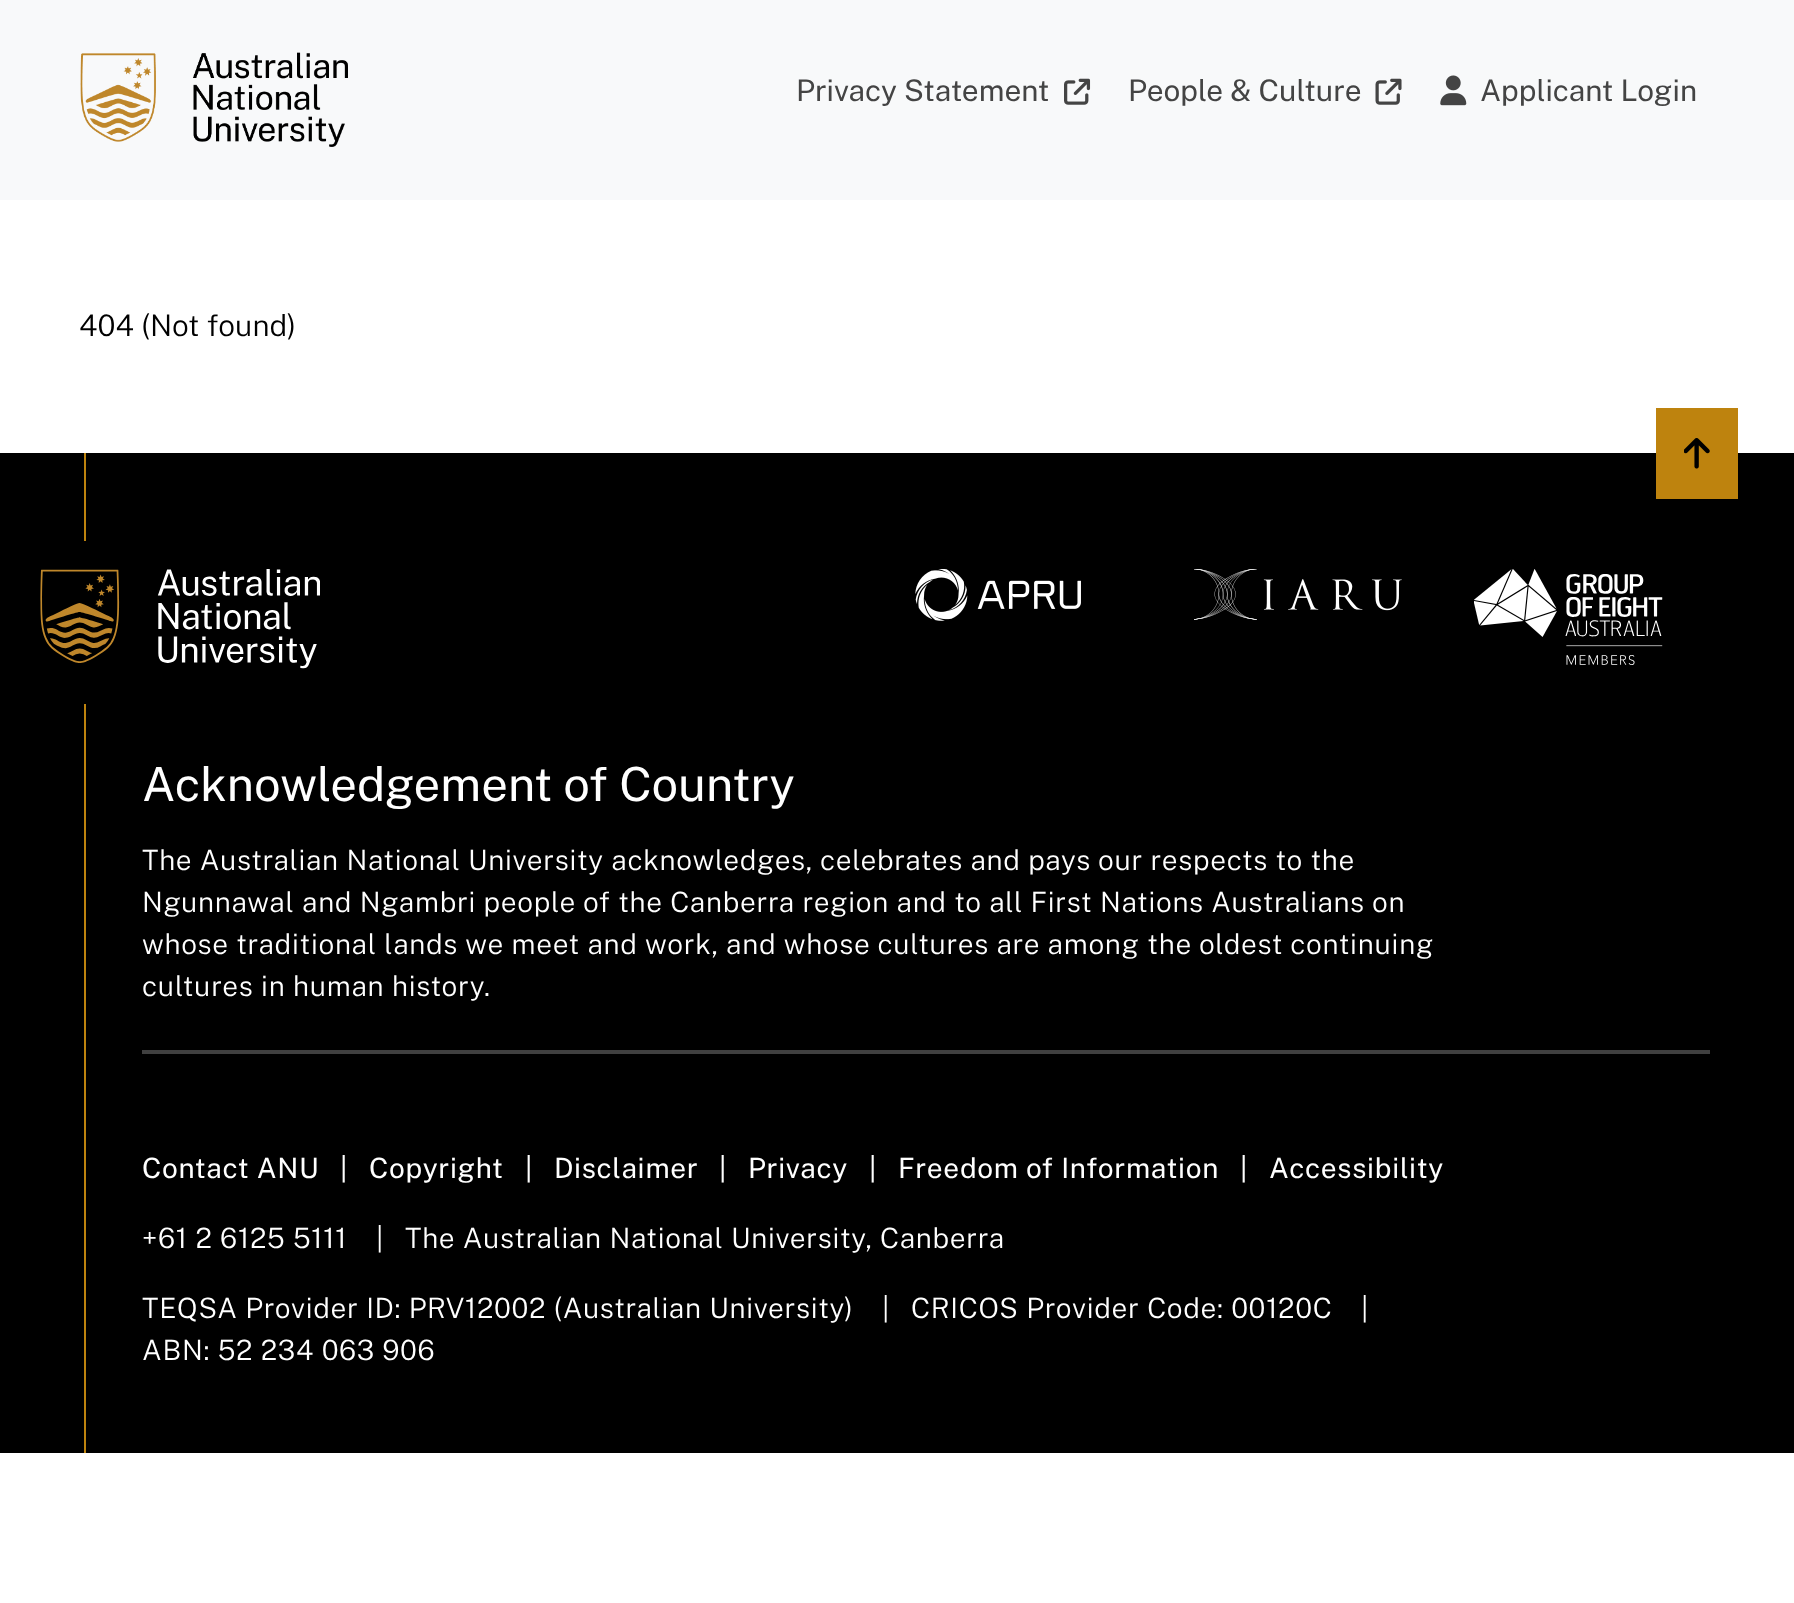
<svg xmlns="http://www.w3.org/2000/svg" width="1794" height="1603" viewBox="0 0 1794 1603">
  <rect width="100%" height="100%" fill="#fff"/>
  <path d="M0 0h1794v200H0z" fill="#f8f9fa"/>
  <image x="80" y="52" width="268" height="95" href="img/1.png"/>
  <image x="1064" y="78" width="27" height="27" href="img/2.png"/>
  <image x="1375" y="78" width="27" height="27" href="img/3.png"/>
  <image x="1440" y="75" width="27" height="31" href="img/4.png"/>
  <path d="M0 453h1794v1000H0z" fill="#000"/>
  <path d="M84 453h2v1000H84z" fill="#be830e"/>
  <path d="M84 541h2v163H84z" fill="#000"/>
  <image x="40" y="569" width="280" height="100" href="img/5.png"/>
  <image x="915" y="569" width="166" height="52" href="img/6.png"/>
  <image x="1194" y="569" width="208" height="51" href="img/7.png"/>
  <image x="1474" y="569" width="189" height="96" href="img/8.png"/>
  <path d="M142 1050h1568v4H142z" fill="#404040"/>
  <path d="M1656 408h82v91H1656z" fill="#be830e"/>
  <image x="1684" y="438" width="26" height="31" href="img/9.png"/>
  <g font-family="Public Sans" font-size="29.75" fill="#444">
    <text x="796" y="101">Privacy Statement</text>
    <text x="1128" y="101">People &amp; Culture</text>
    <text x="1480" y="101">Applicant Login</text>
  </g>
  <text x="79" y="336" font-family="Public Sans" font-size="29.75" font-weight="300" fill="#000">404 (Not found)</text>
  <text x="142" y="801" font-family="Public Sans" font-size="47.2" fill="#fff">Acknowledgement of Country</text>
  <g font-family="Public Sans" font-size="28" font-weight="300" letter-spacing="0.7" fill="#fff">
    <text x="142" y="870">The Australian National University acknowledges, celebrates and pays our respects to the</text>
    <text x="142" y="912">Ngunnawal and Ngambri people of the Canberra region and to all First Nations Australians on</text>
    <text x="142" y="954">whose traditional lands we meet and work, and whose cultures are among the oldest continuing</text>
    <text x="142" y="996">cultures in human history.</text>
  </g>
  <g font-family="Public Sans" font-size="28" letter-spacing="0.7" fill="#fff">
    <text x="142" y="1178">Contact ANU</text>
    <text x="340" y="1178">|</text>
    <text x="369" y="1178">Copyright</text>
    <text x="525" y="1178">|</text>
    <text x="554" y="1178">Disclaimer</text>
    <text x="719" y="1178">|</text>
    <text x="748" y="1178">Privacy</text>
    <text x="869" y="1178">|</text>
    <text x="898" y="1178">Freedom of Information</text>
    <text x="1240" y="1178">|</text>
    <text x="1269" y="1178">Accessibility</text>
  </g>
  <g font-family="Public Sans" font-size="28" font-weight="300" letter-spacing="0.7" fill="#fff">
    <text x="142" y="1248">+61 2 6125 5111</text>
    <text x="376" y="1248">|</text>
    <text x="405" y="1248">The Australian National University, Canberra</text>
    <text x="142" y="1318">TEQSA Provider ID: PRV12002 (Australian University)</text>
    <text x="882" y="1318">|</text>
    <text x="911" y="1318">CRICOS Provider Code: 00120C</text>
    <text x="1361" y="1318">|</text>
    <text x="142" y="1360">ABN: 52 234 063 906</text>
  </g>
</svg>
